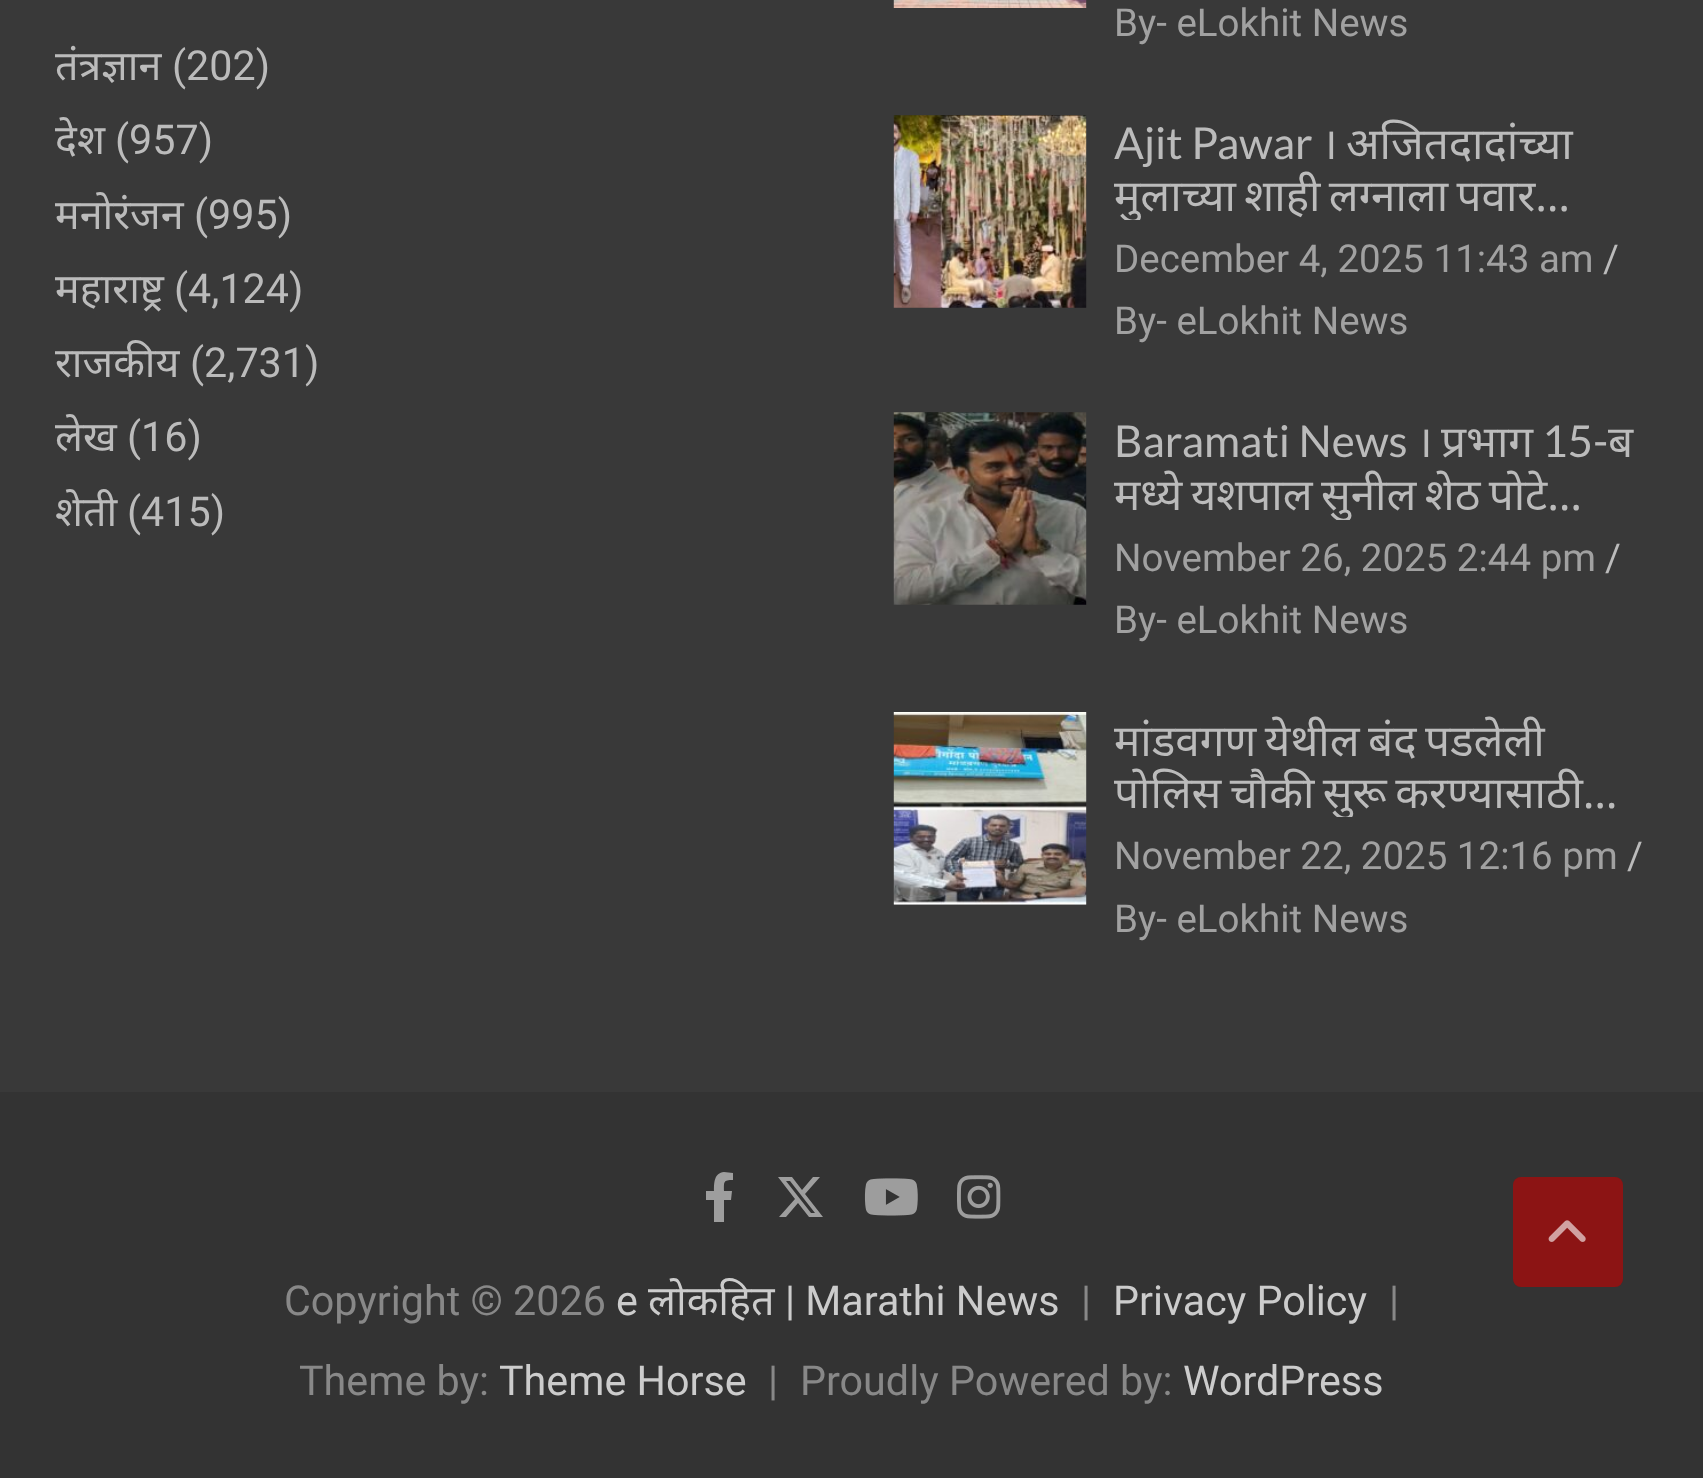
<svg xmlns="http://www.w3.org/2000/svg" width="1703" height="1478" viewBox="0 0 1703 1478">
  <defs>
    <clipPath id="clip1"><path d="M55 0h756v542H55z"/></clipPath>
    <clipPath id="clip2"><path d="M1114 116h536v104H1114z"/></clipPath>
    <clipPath id="clip3"><path d="M1114 413h536v107H1114z"/></clipPath>
    <clipPath id="clip4"><path d="M1114 712h536v105H1114z"/></clipPath>
  </defs>
  <rect width="100%" height="100%" fill="#393939"/>
  <image x="893" y="0" width="194" height="8" href="img/1.png"/>
  <image x="893" y="115" width="194" height="193" href="img/2.png"/>
  <image x="893" y="412" width="194" height="193" href="img/3.png"/>
  <path d="M894 904h192v1H894z" fill="#555"/>
  <image x="893" y="712" width="194" height="193" href="img/4.png"/>
  <path d="M0 1092h1703v386H0z" fill="#333"/>
  <path d="M731 1200L732 1191H724C724 1182 723 1180 733 1180V1173L724 1172C714 1173 714 1183 714 1191H706V1200H714V1222H724V1200Z" fill="#9e9e9e"/>
  <path d="M813 1177H820L805 1194L823 1217H809L798 1203L786 1217H779L795 1199L778 1177H792L802 1190ZM811 1213H815L790 1181H786Z" fill="#9e9e9e"/>
  <image x="864" y="1178" width="54" height="38" href="img/5.png"/>
  <image x="957" y="1175" width="44" height="44" href="img/6.png"/>
  <rect x="1513" y="1177" width="110" height="110" rx="8" fill="#8c1414"/>
  <image x="1548" y="1220" width="38" height="22" href="img/7.png"/>
  <g clip-path="url(#clip1)">
    <text x="55" y="80" font-family="Noto Sans" font-size="41.25" fill="#bbb">तंत्रज्ञान</text>
  </g>
  <text x="172" y="80" font-family="Roboto" font-size="41.25" fill="#bbb">(202)</text>
  <g clip-path="url(#clip1)">
    <text x="55" y="154" font-family="Noto Sans" font-size="41.25" fill="#bbb">देश</text>
  </g>
  <text x="115" y="154" font-family="Roboto" font-size="41.25" fill="#bbb">(957)</text>
  <text x="55" y="229" font-family="Noto Sans" font-size="41.25" fill="#bbb">मनोरंजन</text>
  <text x="194" y="229" font-family="Roboto" font-size="41.25" fill="#bbb">(995)</text>
  <text x="55" y="303" font-family="Noto Sans" font-size="41.25" fill="#bbb">महाराष्ट्र</text>
  <text x="174" y="303" font-family="Roboto" font-size="41.25" fill="#bbb">(4,124)</text>
  <text x="55" y="377" font-family="Noto Sans" font-size="41.25" fill="#bbb">राजकीय</text>
  <text x="190" y="377" font-family="Roboto" font-size="41.25" fill="#bbb">(2,731)</text>
  <g clip-path="url(#clip1)">
    <text x="55" y="451" font-family="Noto Sans" font-size="41.25" fill="#bbb">लेख</text>
  </g>
  <text x="127" y="451" font-family="Roboto" font-size="41.25" fill="#bbb">(16)</text>
  <g clip-path="url(#clip1)">
    <text x="55" y="526" font-family="Noto Sans" font-size="41.25" fill="#bbb">शेती</text>
  </g>
  <text x="127" y="526" font-family="Roboto" font-size="41.25" fill="#bbb">(415)</text>
  <text x="1114" y="36" font-family="Roboto" font-size="38.5" fill="#a1a1a1">By- eLokhit News</text>
  <text x="1114" y="159" font-family="Lato" font-size="44" fill="#bbb">Ajit Pawar</text>
  <g font-family="Noto Sans" font-size="44" fill="#bbb">
    <text x="1321" y="159">।</text>
    <text x="1346" y="159">अजितदादांच्या</text>
  </g>
  <g clip-path="url(#clip2)">
    <text x="1114" y="211" word-spacing="-3" font-family="Noto Sans" font-size="44" fill="#bbb">मुलाच्या शाही लग्नाला पवार…</text>
  </g>
  <text x="1114" y="272" font-family="Roboto" font-size="38.5" fill="#a1a1a1">December 4, 2025 11:43 am</text>
  <text x="1603" y="272" font-family="Roboto" font-size="38.5" fill="#bbb">/</text>
  <text x="1114" y="334" font-family="Roboto" font-size="38.5" fill="#a1a1a1">By- eLokhit News</text>
  <text x="1114" y="457" font-family="Lato" font-size="44" fill="#bbb">Baramati News</text>
  <g font-family="Noto Sans" font-size="44" fill="#bbb">
    <text x="1416" y="457">।</text>
    <text x="1441" y="457">प्रभाग</text>
  </g>
  <text x="1542" y="457" font-family="Lato" font-size="44" fill="#bbb">15-</text>
  <text x="1608" y="457" font-family="Noto Sans" font-size="44" fill="#bbb">ब</text>
  <g clip-path="url(#clip3)">
    <text x="1114" y="510" word-spacing="-3" font-family="Noto Sans" font-size="44" fill="#bbb">मध्ये यशपाल सुनील शेठ पोटे…</text>
  </g>
  <text x="1114" y="571" font-family="Roboto" font-size="38.5" fill="#a1a1a1">November 26, 2025 2:44 pm</text>
  <text x="1605" y="571" font-family="Roboto" font-size="38.5" fill="#bbb">/</text>
  <text x="1114" y="633" font-family="Roboto" font-size="38.5" fill="#a1a1a1">By- eLokhit News</text>
  <g clip-path="url(#clip4)">
    <g font-family="Noto Sans" font-size="44" fill="#bbb">
      <text x="1114" y="756" word-spacing="-3">मांडवगण येथील बंद पडलेली</text>
      <text x="1114" y="808" word-spacing="-3">पोलिस चौकी सुरू करण्यासाठी…</text>
    </g>
  </g>
  <text x="1114" y="869" font-family="Roboto" font-size="38.5" fill="#a1a1a1">November 22, 2025 12:16 pm</text>
  <text x="1627" y="869" font-family="Roboto" font-size="38.5" fill="#bbb">/</text>
  <text x="1114" y="932" font-family="Roboto" font-size="38.5" fill="#a1a1a1">By- eLokhit News</text>
  <text x="284" y="1315" font-family="Roboto" font-size="41.25" fill="#888">Copyright © 2026</text>
  <text x="616" y="1315" font-family="Roboto" font-size="41.25" fill="#ccc">e</text>
  <text x="648" y="1315" font-family="Noto Sans" font-size="41.25" fill="#ccc">लोकहित</text>
  <text x="785" y="1315" font-family="Roboto" font-size="41.25" fill="#ccc">| Marathi News</text>
  <text x="1081" y="1315" font-family="Roboto" font-size="41.25" fill="#888">|</text>
  <text x="1113" y="1315" font-family="Roboto" font-size="41.25" fill="#ccc">Privacy Policy</text>
  <g font-family="Roboto" font-size="41.25" fill="#888">
    <text x="1389" y="1315">|</text>
    <text x="299" y="1395">Theme by:</text>
  </g>
  <text x="499" y="1395" font-family="Roboto" font-size="41.25" fill="#ccc">Theme Horse</text>
  <g font-family="Roboto" font-size="41.25" fill="#888">
    <text x="768" y="1395">|</text>
    <text x="800" y="1395">Proudly Powered by:</text>
  </g>
  <text x="1183" y="1395" font-family="Roboto" font-size="41.25" fill="#ccc">WordPress</text>
</svg>
